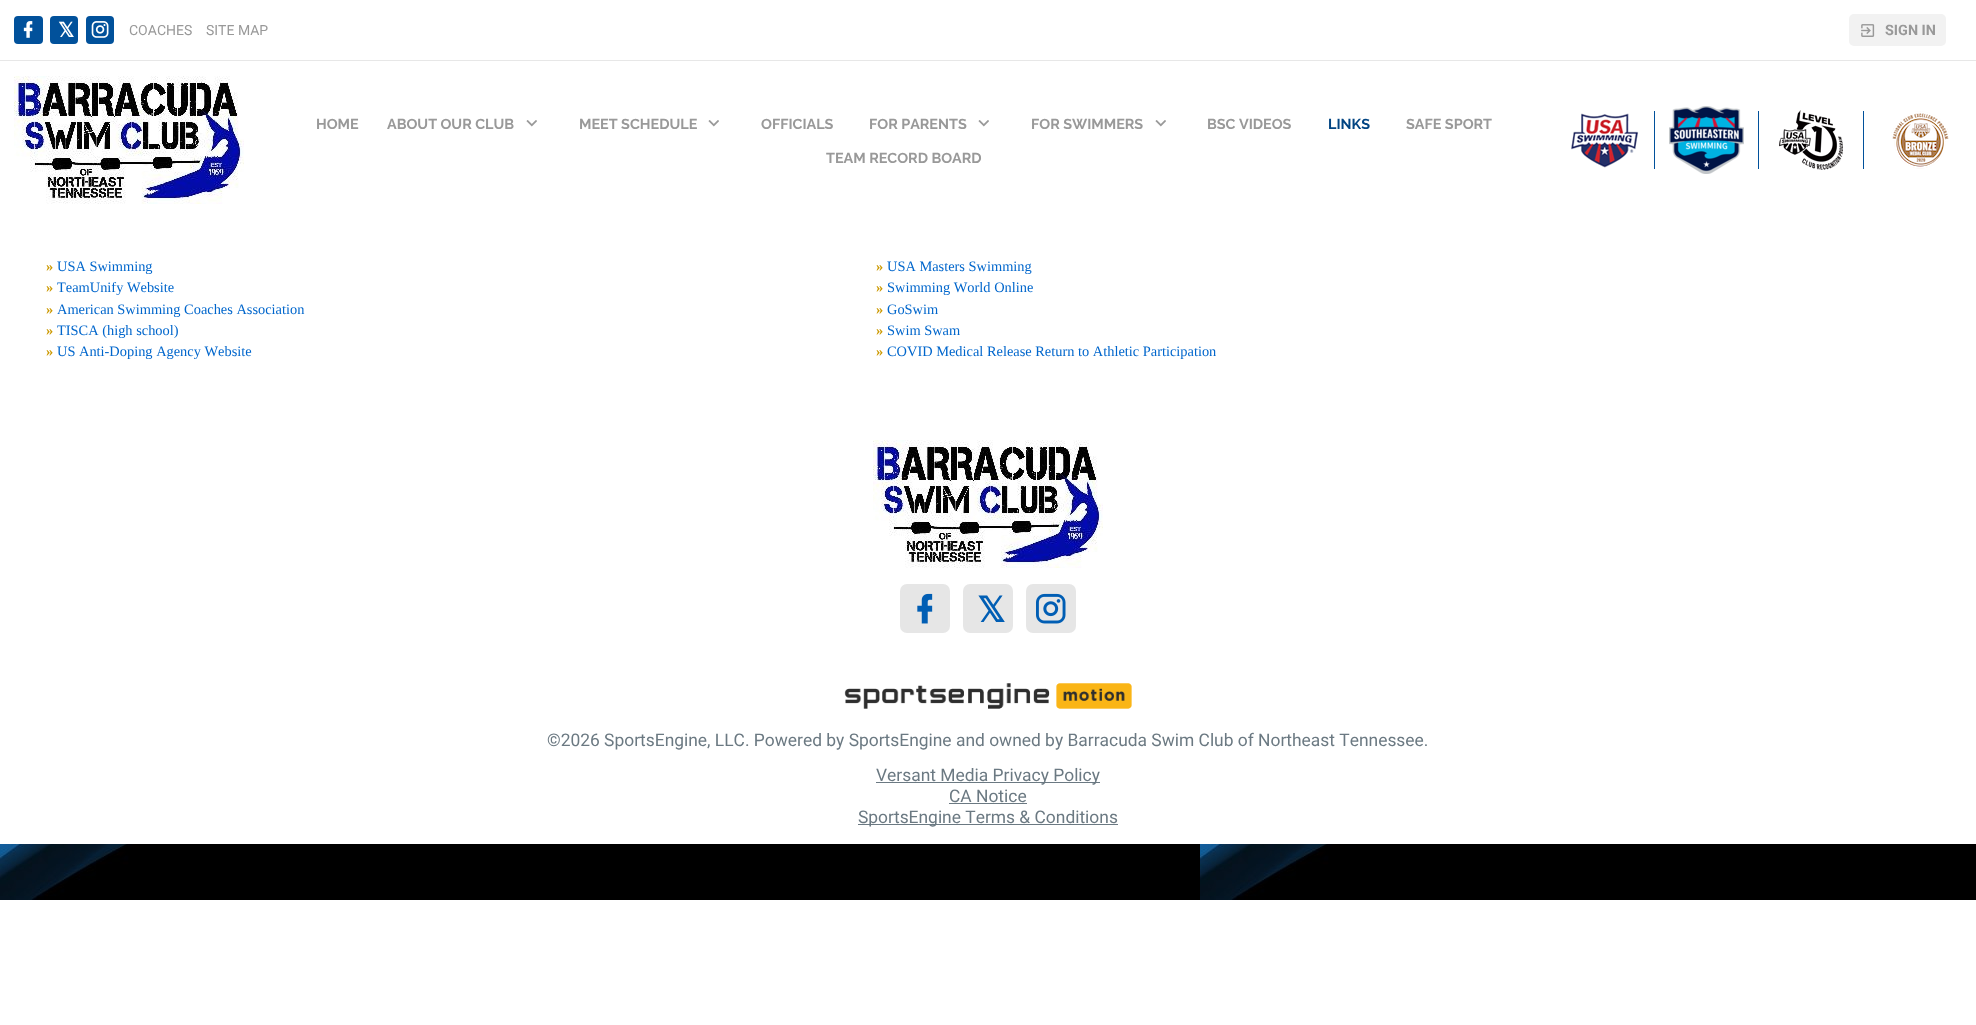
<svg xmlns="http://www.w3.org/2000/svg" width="1976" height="1025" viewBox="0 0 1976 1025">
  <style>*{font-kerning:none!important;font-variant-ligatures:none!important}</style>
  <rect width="100%" height="100%" fill="#fff"/>
  <image x="0" y="844" width="1976" height="56" href="img/1.png"/>
  <path d="M0 60h1976v1H0z" fill="#e7e7e7"/>
  <rect x="14" y="16" width="29" height="28" rx="4" fill="#01519b"/>
  <image x="23" y="21" width="10" height="17" href="img/2.png"/>
  <rect x="50" y="16" width="28" height="28" rx="4" fill="#01519b"/>
  <rect x="86" y="16" width="28" height="28" rx="4" fill="#01519b"/>
  <image x="91" y="21" width="18" height="17" href="img/3.png"/>
  <rect x="1849" y="14" width="97" height="32" rx="5" fill="#f2f2f2"/>
  <image x="1861" y="24" width="14" height="13" href="img/4.png"/>
  <image x="14" y="76" width="230" height="128" href="img/5.png"/>
  <image x="526" y="120" width="11" height="7" href="img/6.png"/>
  <image x="708" y="120" width="11" height="7" href="img/6.png"/>
  <image x="978" y="120" width="11" height="7" href="img/6.png"/>
  <image x="1155" y="120" width="11" height="7" href="img/6.png"/>
  <image x="1571" y="113" width="68" height="55" href="img/7.png"/>
  <path d="M1654 111h1v58H1654z" fill="#01519b"/>
  <image x="1669" y="106" width="75" height="68" href="img/8.png"/>
  <path d="M1758 111h1v58H1758z" fill="#01519b"/>
  <image x="1779" y="110" width="64" height="60" href="img/9.png"/>
  <path d="M1863 111h1v58H1863z" fill="#01519b"/>
  <image x="1891" y="111" width="58" height="58" href="img/10.png"/>
  <image x="873" y="440" width="230" height="128" href="img/5.png"/>
  <rect x="900" y="584" width="50" height="49" rx="7" fill="#e6e6e6"/>
  <image x="917" y="593" width="16" height="31" href="img/11.png"/>
  <rect x="963" y="584" width="50" height="49" rx="7" fill="#e6e6e6"/>
  <rect x="1026" y="584" width="50" height="49" rx="7" fill="#e6e6e6"/>
  <image x="1036" y="593" width="30" height="31" href="img/12.png"/>
  <image x="844" y="683" width="288" height="26" href="img/13.png"/>
  <path d="M876 782h224v1H876z" fill="#6b7982"/>
  <path d="M949 803h78v1H949z" fill="#6b7982"/>
  <path d="M858 824h260v1H858z" fill="#6b7982"/>
  <text x="58" y="37" font-family="DejaVu Sans" font-size="20" font-weight="bold" fill="#fff">𝕏</text>
  <g font-family="Roboto" font-size="14" fill="#999">
    <text x="129" y="35">COACHES</text>
    <text x="206" y="35">SITE MAP</text>
  </g>
  <text x="1885" y="35" font-family="Roboto" font-size="14.4" font-weight="bold" fill="#999">SIGN IN</text>
  <g font-family="Raleway" font-size="14.4" font-weight="bold" fill="#999">
    <text x="316" y="129">HOME</text>
    <text x="387" y="129">ABOUT OUR CLUB</text>
    <text x="579" y="129">MEET SCHEDULE</text>
    <text x="761" y="129">OFFICIALS</text>
    <text x="869" y="129">FOR PARENTS</text>
    <text x="1031" y="129">FOR SWIMMERS</text>
    <text x="1207" y="129">BSC VIDEOS</text>
  </g>
  <text x="1328" y="129" font-family="Raleway" font-size="14.4" font-weight="bold" fill="#014482">LINKS</text>
  <g font-family="Raleway" font-size="14.4" font-weight="bold" fill="#999">
    <text x="1406" y="129">SAFE SPORT</text>
    <text x="826" y="163">TEAM RECORD BOARD</text>
  </g>
  <text x="46" y="271" font-family="Liberation Serif" font-size="14.4" font-weight="bold" fill="#c90">»</text>
  <text x="57" y="271" font-family="Liberation Serif" font-size="14.4" fill="#06c">USA Swimming</text>
  <text x="876" y="271" font-family="Liberation Serif" font-size="14.4" font-weight="bold" fill="#c90">»</text>
  <text x="887" y="271" font-family="Liberation Serif" font-size="14.4" fill="#06c">USA Masters Swimming</text>
  <text x="46" y="292" font-family="Liberation Serif" font-size="14.4" font-weight="bold" fill="#c90">»</text>
  <text x="57" y="292" font-family="Liberation Serif" font-size="14.4" fill="#06c">TeamUnify Website</text>
  <text x="876" y="292" font-family="Liberation Serif" font-size="14.4" font-weight="bold" fill="#c90">»</text>
  <text x="887" y="292" font-family="Liberation Serif" font-size="14.4" fill="#06c">Swimming World Online</text>
  <text x="46" y="314" font-family="Liberation Serif" font-size="14.4" font-weight="bold" fill="#c90">»</text>
  <text x="57" y="314" font-family="Liberation Serif" font-size="14.4" fill="#06c">American Swimming Coaches Association</text>
  <text x="876" y="314" font-family="Liberation Serif" font-size="14.4" font-weight="bold" fill="#c90">»</text>
  <text x="887" y="314" font-family="Liberation Serif" font-size="14.4" fill="#06c">GoSwim</text>
  <text x="46" y="335" font-family="Liberation Serif" font-size="14.4" font-weight="bold" fill="#c90">»</text>
  <text x="57" y="335" font-family="Liberation Serif" font-size="14.4" fill="#06c">TISCA (high school)</text>
  <text x="876" y="335" font-family="Liberation Serif" font-size="14.4" font-weight="bold" fill="#c90">»</text>
  <text x="887" y="335" font-family="Liberation Serif" font-size="14.4" fill="#06c">Swim Swam</text>
  <text x="46" y="356" font-family="Liberation Serif" font-size="14.4" font-weight="bold" fill="#c90">»</text>
  <text x="57" y="356" font-family="Liberation Serif" font-size="14.4" fill="#06c">US Anti-Doping Agency Website</text>
  <text x="876" y="356" font-family="Liberation Serif" font-size="14.4" font-weight="bold" fill="#c90">»</text>
  <text x="887" y="356" font-family="Liberation Serif" font-size="14.4" fill="#06c">COVID Medical Release Return to Athletic Participation</text>
  <text x="977" y="622" font-family="DejaVu Sans" font-size="35" font-weight="bold" fill="#015eb4">𝕏</text>
  <g font-family="Roboto" font-size="17.42" fill="#6b7982">
    <text x="547" y="746">©2026 SportsEngine, LLC. Powered by SportsEngine and owned by Barracuda Swim Club of Northeast Tennessee.</text>
    <text x="876" y="781">Versant Media Privacy Policy</text>
    <text x="949" y="802">CA Notice</text>
    <text x="858" y="823">SportsEngine Terms &amp; Conditions</text>
  </g>
</svg>
